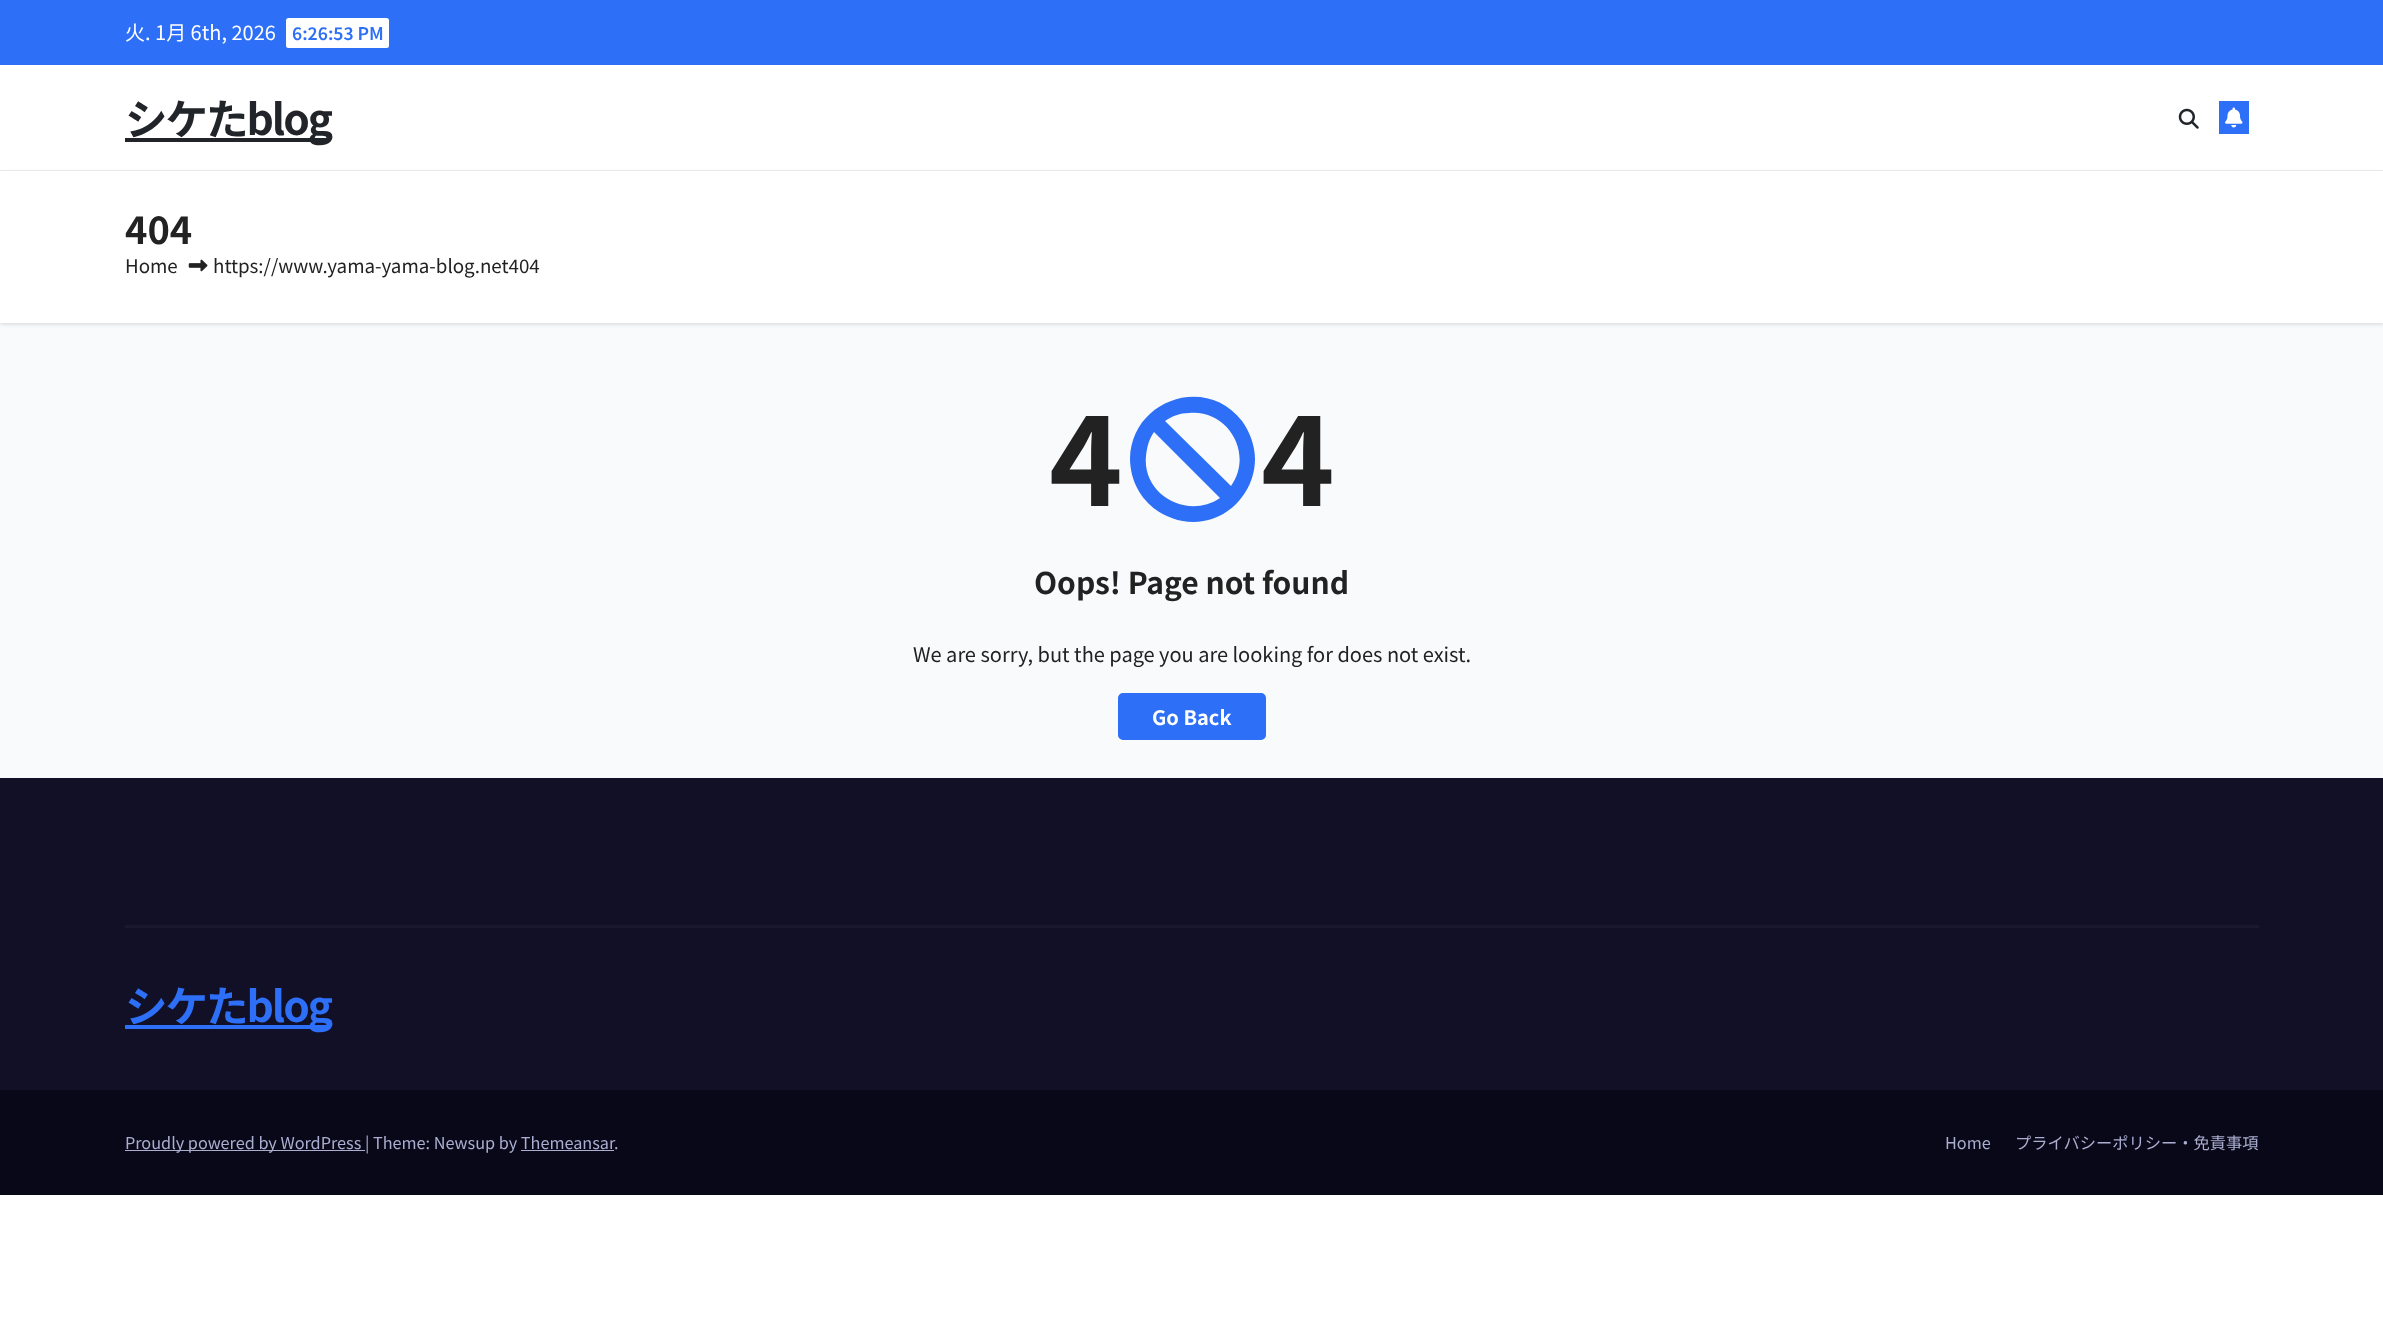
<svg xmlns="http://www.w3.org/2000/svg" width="2383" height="1341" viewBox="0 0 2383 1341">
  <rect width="100%" height="100%" fill="#fff"/>
  <path d="M0 323h2383v455H0z" fill="#f9fafb"/>
  <path d="M0 0h2383v65H0z" fill="#2d6ff7"/>
  <rect x="286" y="18" width="103" height="30" rx="2.5" fill="#fff"/>
  <path d="M0 170h2383v1H0z" fill="#eee"/>
  <path d="M125 138h205v4H125z" fill="#212529"/>
  <image x="2178" y="108" width="21" height="21" href="img/1.png"/>
  <path d="M2219 101h30v33H2219z" fill="#2d6ff7"/>
  <image x="2225" y="107" width="18" height="21" href="img/2.png"/>
  <path d="M0 173h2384v151H0z" fill="#00000026" filter="blur(2px)"/>
  <path d="M0 171h2383v152H0z" fill="#fff"/>
  <image x="188" y="259" width="20" height="13" href="img/3.png"/>
  <path d="M1220 498L1154 432C1149 439 1147 447 1146 456C1142 495 1188 520 1220 498ZM1231 486C1254 454 1228 409 1189 413C1180 413 1172 416 1165 421ZM1130 459C1131 400 1206 374 1242 421C1250 432 1255 446 1255 459C1255 473 1250 487 1242 497C1206 545 1131 519 1130 459Z" fill="#2d6ff7"/>
  <rect x="1119.5" y="694.5" width="145" height="44" rx="3.5" fill="#2d6ff7" stroke="#2d6ff7" stroke-width="3"/>
  <path d="M0 778h2383v312H0z" fill="#121026"/>
  <path d="M125 925h2134v3H125z" fill="#1a182e"/>
  <path d="M125 1025h205v4H125z" fill="#2d6ff7"/>
  <path d="M0 1090h2383v105H0z" fill="#090818"/>
  <path d="M125 1150h240v1H125z" fill="#aaaed1"/>
  <path d="M521 1150h93v1H521z" fill="#aaaed1"/>
  <text x="125" y="40" font-family="Noto Sans JP" font-size="20" fill="#fff">火. 1月 6th, 2026</text>
  <text x="292" y="40" font-family="Noto Sans JP" font-size="17.5" font-weight="600" fill="#2d6ff7">6:26:53 PM</text>
  <text x="125" y="135" font-family="Noto Sans JP" font-size="42.5" font-weight="bold" letter-spacing="-2" fill="#212529">シケたblog</text>
  <text x="125" y="244" font-family="Noto Sans JP" font-size="38" font-weight="bold" fill="#222">404</text>
  <g font-family="Noto Sans JP" font-size="18.75" fill="#222">
    <text x="125" y="273">Home</text>
    <text x="213" y="273">https://www.yama-yama-blog.net404</text>
  </g>
  <g font-family="Noto Sans JP" font-size="125" font-weight="bold" fill="#222">
    <text x="1049" y="506">4</text>
    <text x="1261" y="506">4</text>
  </g>
  <text x="1034" y="594" font-family="Noto Sans JP" font-size="30" font-weight="bold" fill="#222">Oops! Page not found</text>
  <text x="913" y="662" font-family="Noto Sans JP" font-size="20" fill="#222">We are sorry, but the page you are looking for does not exist.</text>
  <text x="1152" y="725" font-family="Noto Sans JP" font-size="20" font-weight="bold" fill="#fff">Go Back</text>
  <text x="125" y="1022" font-family="Noto Sans JP" font-size="42.5" font-weight="bold" letter-spacing="-2" fill="#2d6ff7">シケたblog</text>
  <g font-family="Noto Sans JP" font-size="16.25" fill="#aaaed1">
    <text x="125" y="1149">Proudly powered by WordPress | Theme: Newsup by Themeansar</text>
    <text x="614" y="1149">.</text>
    <text x="1945" y="1149">Home</text>
    <text x="2015" y="1149">プライバシーポリシー・免責事項</text>
  </g>
</svg>
